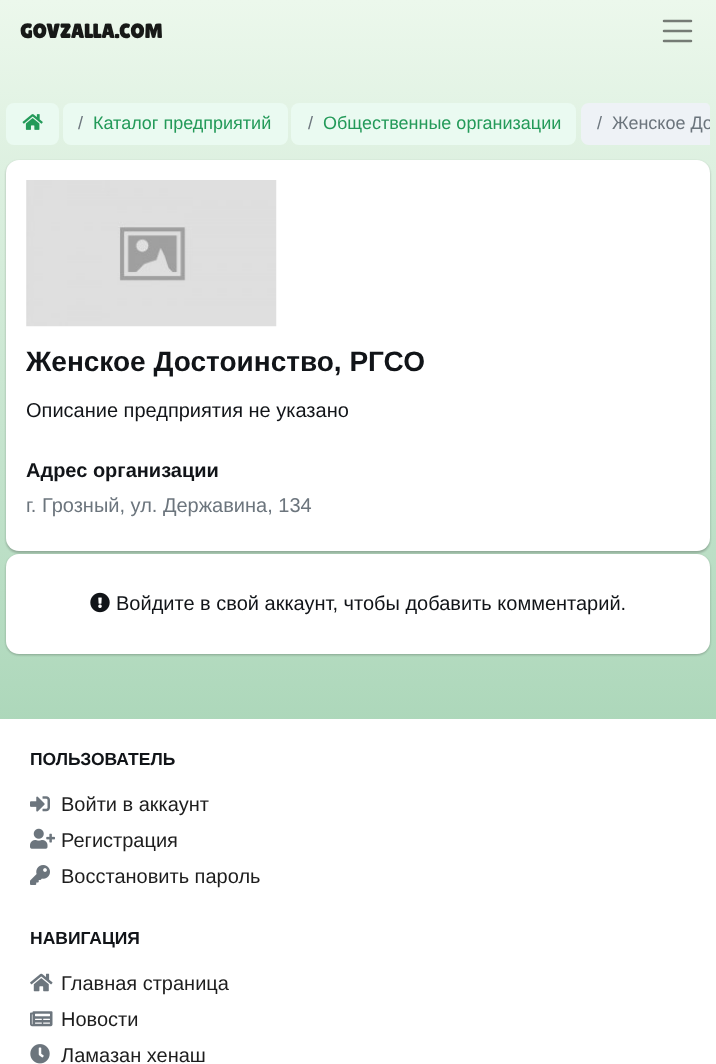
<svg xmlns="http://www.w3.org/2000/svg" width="716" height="1064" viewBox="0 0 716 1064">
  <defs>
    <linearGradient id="g1" gradientUnits="userSpaceOnUse" x1="358" y1="0" x2="358" y2="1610"><stop offset="0" stop-color="#ecf8ec"/><stop offset="1" stop-color="#5faf7d"/></linearGradient>
    <clipPath id="clip1"><rect x="6" y="103" width="704" height="47" rx="5"/></clipPath>
  </defs>
  <rect width="100%" height="100%" fill="#fff"/>
  <path d="M0 0h716v719H0z" fill="url(#g1)"/>
  <path d="M664 21H691M664 31H691M664 41H691" fill="none" stroke="#757b75" stroke-width="2.5" stroke-linecap="round"/>
  <rect x="6" y="103" width="53" height="42" rx="8" fill="#eafaf1"/>
  <image x="22" y="114" width="21" height="16" href="img/1.png"/>
  <rect x="63" y="103" width="225" height="42" rx="8" fill="#eafaf1"/>
  <rect x="291" y="103" width="285" height="42" rx="8" fill="#eafaf1"/>
  <path d="M589 103H705C708 103 710 105 710 108V145H589C584.5 145 581 141.5 581 137V111C581 106.5 584.5 103 589 103Z" fill="#eef2f6"/>
  <rect x="6" y="161" width="704" height="392" rx="13" fill="#00000021" filter="blur(1px)"/>
  <rect x="6" y="161" width="704" height="392" rx="13" fill="#0000001f" filter="blur(1px)"/>
  <rect x="6" y="160" width="704" height="391" rx="13" fill="#fff"/>
  <image x="26" y="180" width="251" height="147" href="img/2.png"/>
  <rect x="6" y="555" width="704" height="100" rx="13" fill="#00000021" filter="blur(1px)"/>
  <rect x="6" y="555" width="704" height="100" rx="13" fill="#0000001f" filter="blur(1px)"/>
  <rect x="6" y="554" width="704" height="100" rx="13" fill="#fff"/>
  <image x="90" y="592" width="20" height="21" href="img/3.png"/>
  <image x="30" y="796" width="20" height="16" href="img/4.png"/>
  <image x="30" y="828" width="25" height="21" href="img/5.png"/>
  <image x="30" y="865" width="20" height="20" href="img/6.png"/>
  <image x="30" y="973" width="23" height="19" href="img/7.png"/>
  <image x="30" y="1011" width="23" height="16" href="img/8.png"/>
  <image x="30" y="1044" width="20" height="20" href="img/9.png"/>
  <text x="20" y="38" font-family="Lilita One" font-size="20" font-weight="bold" fill="#171917">GOVZALLA.COM</text>
  <text x="78" y="129" font-family="Liberation Sans" font-size="18" fill="#6c757d">/</text>
  <text x="93" y="129" font-family="Liberation Sans" font-size="18" fill="#239a59">Каталог предприятий</text>
  <text x="308" y="129" font-family="Liberation Sans" font-size="18" fill="#6c757d">/</text>
  <text x="323" y="129" font-family="Liberation Sans" font-size="18" fill="#239a59">Общественные организации</text>
  <text x="597" y="129" font-family="Liberation Sans" font-size="18" fill="#6c757d">/</text>
  <g clip-path="url(#clip1)">
    <text x="612" y="129" font-family="Liberation Sans" font-size="18" fill="#6c757d">Женское До</text>
  </g>
  <text x="26" y="371" font-family="Liberation Sans" font-size="28" font-weight="bold" fill="#111418">Женское Достоинство, РГСО</text>
  <text x="26" y="417" font-family="Liberation Sans" font-size="20" fill="#111418">Описание предприятия не указано</text>
  <text x="26" y="477" font-family="Liberation Sans" font-size="20" font-weight="bold" fill="#111418">Адрес организации</text>
  <text x="26" y="512" font-family="Liberation Sans" font-size="20" fill="#6c757d">г. Грозный, ул. Державина, 134</text>
  <text x="116" y="610" font-family="Liberation Sans" font-size="20" fill="#111418">Войдите в свой аккаунт, чтобы добавить комментарий.</text>
  <text x="30" y="765" font-family="Liberation Sans" font-size="17.5" font-weight="bold" fill="#111418">ПОЛЬЗОВАТЕЛЬ</text>
  <g font-family="Liberation Sans" font-size="20" fill="#1d1d1d">
    <text x="61" y="811">Войти в аккаунт</text>
    <text x="61" y="847">Регистрация</text>
    <text x="61" y="883">Восстановить пароль</text>
  </g>
  <text x="30" y="944" font-family="Liberation Sans" font-size="17.5" font-weight="bold" fill="#111418">НАВИГАЦИЯ</text>
  <g font-family="Liberation Sans" font-size="20" fill="#1d1d1d">
    <text x="61" y="990">Главная страница</text>
    <text x="61" y="1026">Новости</text>
    <text x="61" y="1062">Ламазан хенаш</text>
  </g>
</svg>
